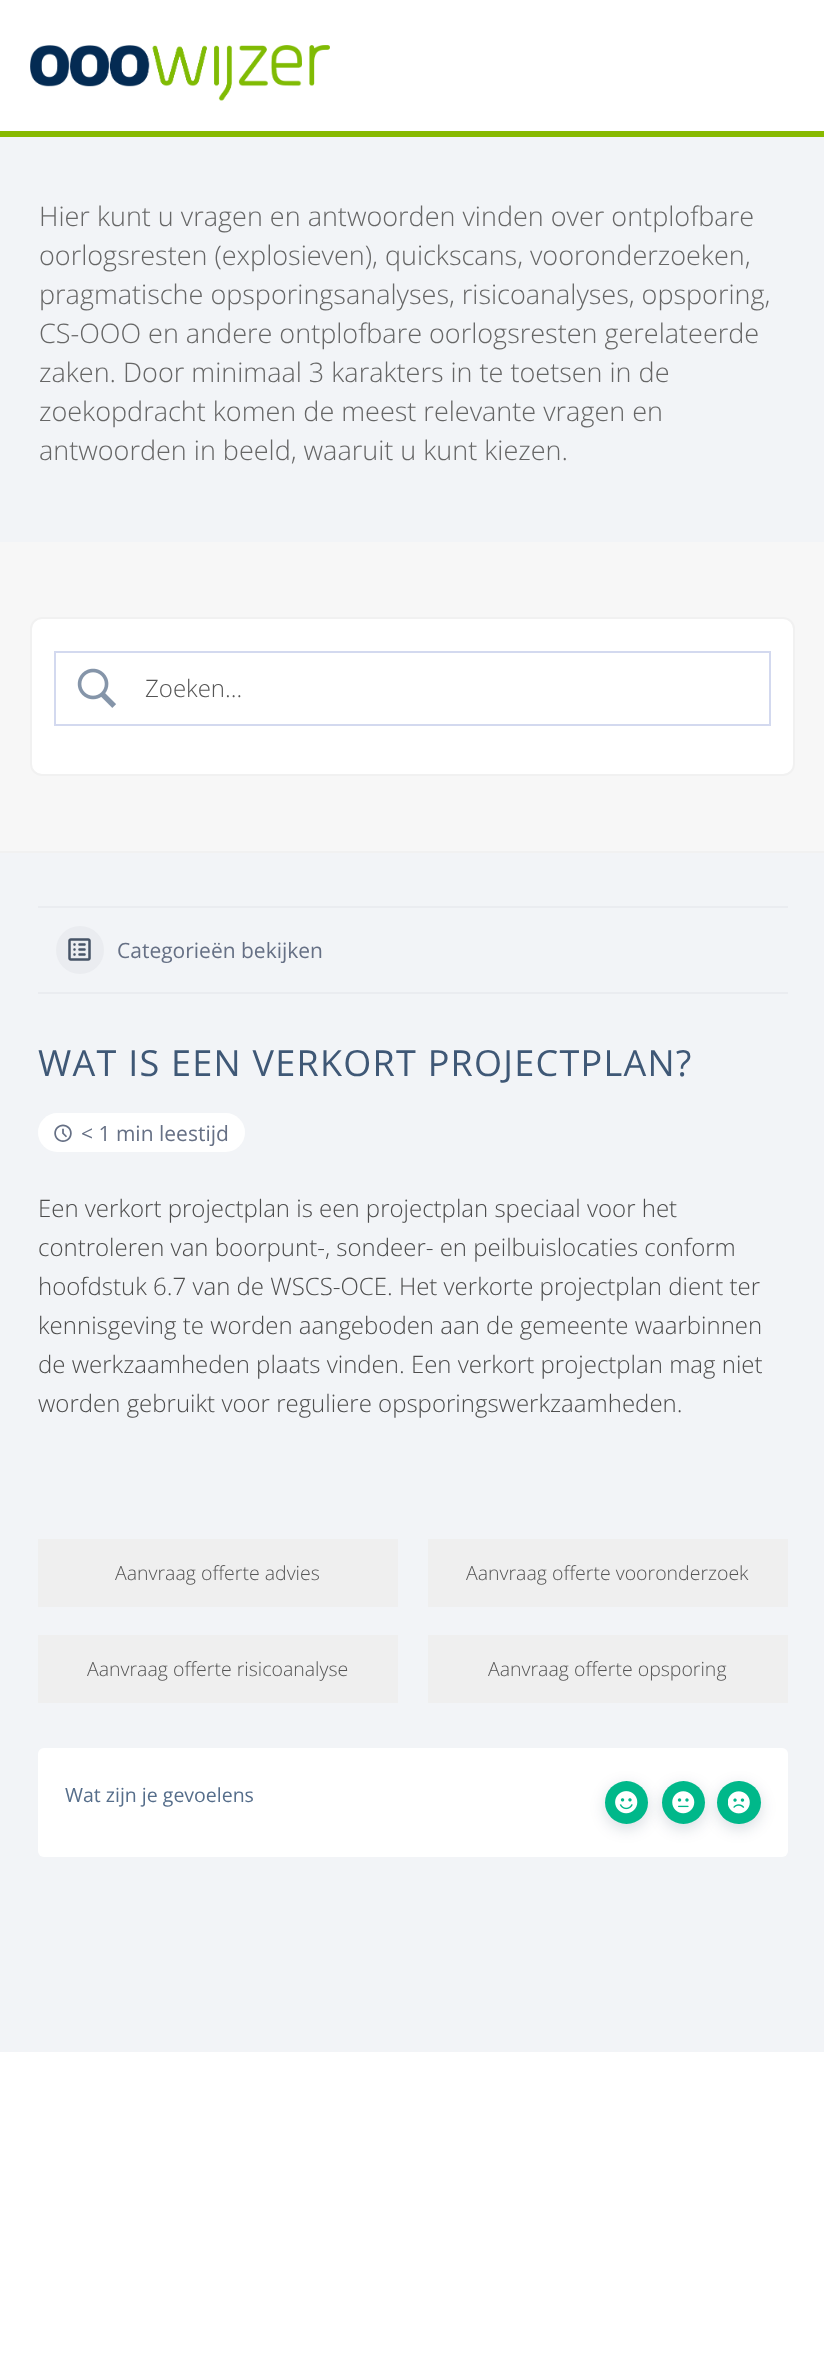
<svg xmlns="http://www.w3.org/2000/svg" width="824" height="2357" viewBox="0 0 824 2357">
  <rect width="100%" height="100%" fill="#fff"/>
  <path d="M0 131h824v6H0z" fill="#88ba00"/>
  <image x="30" y="45" width="300" height="56" href="img/1.png"/>
  <path d="M0 137h824v1915H0z" fill="#f2f4f7"/>
  <path d="M0 542h824v309H0z" fill="#f7f7f7"/>
  <path d="M0 851h824v2H0z" fill="#f1f1f1"/>
  <rect x="31" y="618" width="763" height="157" rx="11" fill="#fff" stroke="#f1f1f1" stroke-width="2"/>
  <path d="M55 652h715v73H55z" fill="none" stroke="#d3d9ef" stroke-width="2"/>
  <image x="77" y="668" width="39" height="40" href="img/2.png"/>
  <path d="M38 906h750v2H38z" fill="#eaecf0"/>
  <path d="M38 992h750v2H38z" fill="#eaecf0"/>
  <circle cx="80" cy="950" r="24" fill="#eaecf0"/>
  <image x="68" y="938" width="23" height="23" href="img/3.png"/>
  <rect x="38" y="1113" width="207" height="39" rx="19.5" fill="#fff"/>
  <image x="54" y="1124" width="18" height="18" href="img/4.png"/>
  <path d="M38 1539h360v68H38z" fill="#efefef"/>
  <path d="M428 1539h360v68H428z" fill="#efefef"/>
  <path d="M38 1635h360v68H38z" fill="#efefef"/>
  <path d="M428 1635h360v68H428z" fill="#efefef"/>
  <rect x="38" y="1748" width="750" height="109" rx="6" fill="#fff"/>
  <rect x="605" y="1785" width="43" height="44" rx="21.5" fill="#031d3c26" filter="blur(7.5px)"/>
  <circle cx="626.5" cy="1802.5" r="21.5" fill="#00b88a"/>
  <image x="615" y="1791" width="23" height="23" href="img/5.png"/>
  <rect x="662" y="1785" width="43" height="44" rx="21.5" fill="#031d3c26" filter="blur(7.5px)"/>
  <circle cx="683.5" cy="1802.5" r="21.5" fill="#00b88a"/>
  <rect x="717" y="1785" width="44" height="44" rx="22" fill="#031d3c26" filter="blur(7.5px)"/>
  <image x="672" y="1791" width="23" height="23" href="img/6.png"/>
  <rect x="717" y="1781" width="44" height="43" rx="21.5" fill="#00b88a"/>
  <image x="728" y="1791" width="22" height="23" href="img/7.png"/>
  <g font-family="Open Sans" font-size="27" font-weight="300" fill="#666">
    <text x="39" y="226">Hier kunt u vragen en antwoorden vinden over ontplofbare</text>
    <text x="39" y="265">oorlogsresten (explosieven), quickscans, vooronderzoeken,</text>
    <text x="39" y="304">pragmatische opsporingsanalyses, risicoanalyses, opsporing,</text>
    <text x="39" y="343">CS-OOO en andere ontplofbare oorlogsresten gerelateerde</text>
    <text x="39" y="382">zaken. Door minimaal 3 karakters in te toetsen in de</text>
    <text x="39" y="421">zoekopdracht komen de meest relevante vragen en</text>
    <text x="39" y="460">antwoorden in beeld, waaruit u kunt kiezen.</text>
  </g>
  <text x="145" y="697" font-family="Open Sans" font-size="24" font-weight="300" fill="#555">Zoeken…</text>
  <text x="117" y="958" font-family="Open Sans" font-size="21" fill="#667085">Categorieën bekijken</text>
  <text x="38" y="1076" font-family="Open Sans" font-size="36" letter-spacing="1.25" fill="#3f5876">WAT IS EEN VERKORT PROJECTPLAN?</text>
  <text x="81" y="1141" font-family="Open Sans" font-size="21" fill="#667085">&lt; 1 min leestijd</text>
  <g font-family="Open Sans" font-size="24" font-weight="300" fill="#4d4d4d">
    <text x="38" y="1217">Een verkort projectplan is een projectplan speciaal voor het</text>
    <text x="38" y="1256">controleren van boorpunt-, sondeer- en peilbuislocaties conform</text>
    <text x="38" y="1295">hoofdstuk 6.7 van de WSCS-OCE. Het verkorte projectplan dient ter</text>
    <text x="38" y="1334">kennisgeving te worden aangeboden aan de gemeente waarbinnen</text>
    <text x="38" y="1373">de werkzaamheden plaats vinden. Een verkort projectplan mag niet</text>
    <text x="38" y="1412">worden gebruikt voor reguliere opsporingswerkzaamheden.</text>
  </g>
  <g font-family="Open Sans" font-size="19.5" font-weight="300" fill="#555">
    <text x="115" y="1580">Aanvraag offerte advies</text>
    <text x="466" y="1580">Aanvraag offerte vooronderzoek</text>
    <text x="87" y="1676">Aanvraag offerte risicoanalyse</text>
    <text x="488" y="1676">Aanvraag offerte opsporing</text>
  </g>
  <text x="65" y="1802" font-family="Open Sans" font-size="19.5" fill="#566e8b">Wat zijn je gevoelens</text>
</svg>
